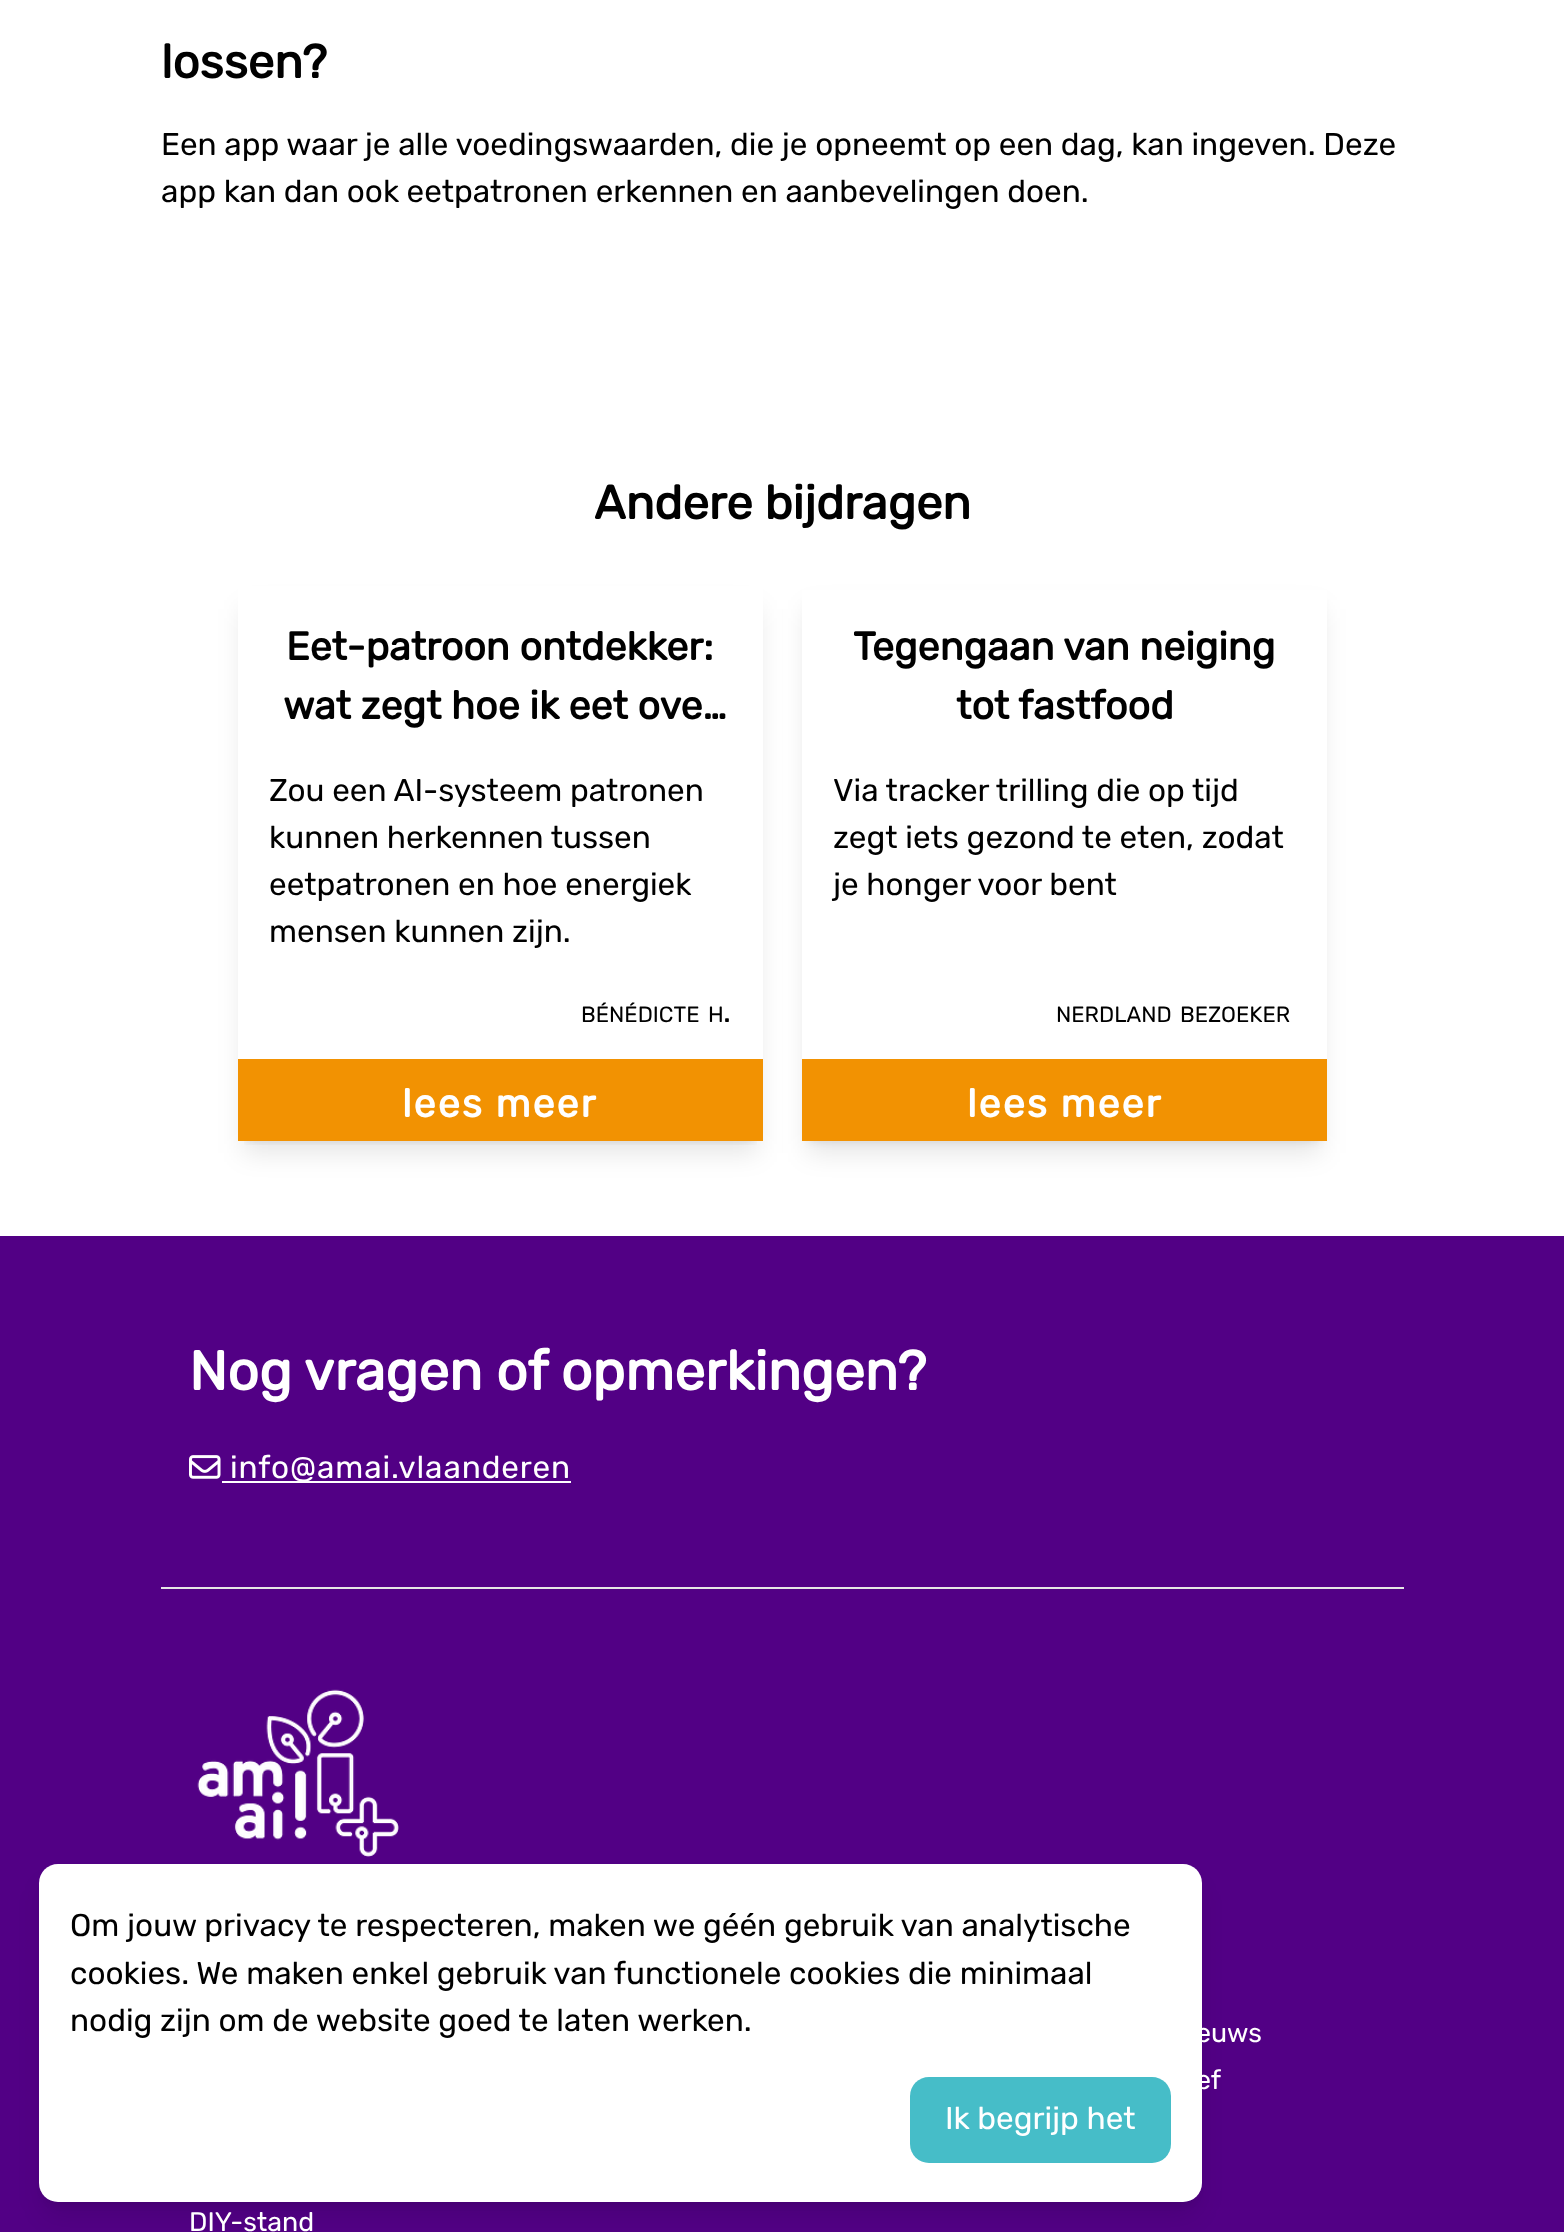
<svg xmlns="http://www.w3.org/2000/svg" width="1564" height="2232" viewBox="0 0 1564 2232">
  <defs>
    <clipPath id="clip1"><path d="M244 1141h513v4H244z"/></clipPath>
    <clipPath id="clip2"><path d="M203 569H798V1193H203ZM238 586H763V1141H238Z" clip-rule="evenodd"/></clipPath>
  </defs>
  <rect width="100%" height="100%" fill="#fff"/>
  <g clip-path="url(#clip1)">
    <path d="M245 600h511v541H245z" fill="#0000001a" filter="blur(5px)"/>
  </g>
  <g clip-path="url(#clip2)">
    <path d="M243 609h515v544H243z" fill="#0000001a" filter="blur(13px)"/>
  </g>
  <path d="M238 1059h525v82H238z" fill="#f29202"/>
  <path d="M809 600h511v541H809z" fill="#0000001a" filter="blur(5px)"/>
  <path d="M807 609h514v544H807z" fill="#0000001a" filter="blur(13px)"/>
  <path d="M802 590h525v469H802z" fill="#fff"/>
  <path d="M802 1059h525v82H802z" fill="#f29202"/>
  <path d="M0 1236h1564v996H0z" fill="#520085"/>
  <image x="189" y="1455" width="32" height="24" href="img/1.png"/>
  <path d="M222 1481h349v2H222z" fill="#fff"/>
  <path d="M161 1587h1243v2H161z" fill="#e6e6e6"/>
  <image x="197" y="1689" width="202" height="168" href="img/2.png"/>
  <rect x="46" y="1878" width="1149" height="324" rx="12" fill="#0000001a" filter="blur(5px)"/>
  <rect x="44" y="1887" width="1153" height="327" rx="14" fill="#0000001a" filter="blur(13px)"/>
  <rect x="39" y="1864" width="1163" height="338" rx="19" fill="#fff"/>
  <rect x="910" y="2077" width="261" height="86" rx="19" fill="#46bdc8"/>
  <text x="161" y="78" font-family="Rubik" font-size="47.25" font-weight="bold" fill="#000">lossen?</text>
  <g font-family="Rubik" font-size="31.5" font-weight="300" fill="#000">
    <text x="161" y="155">Een app waar je alle voedingswaarden, die je opneemt op een dag, kan ingeven. Deze</text>
    <text x="161" y="202">app kan dan ook eetpatronen erkennen en aanbevelingen doen.</text>
  </g>
  <text x="594" y="519" font-family="Rubik" font-size="47.25" font-weight="bold" fill="#000">Andere bijdragen</text>
  <g font-family="Rubik" font-size="39.4" font-weight="bold" fill="#000">
    <text x="286" y="660">Eet-patroon ontdekker:</text>
    <text x="283" y="719">wat zegt hoe ik eet ove…</text>
  </g>
  <g font-family="Rubik" font-size="31.5" font-weight="300" fill="#000">
    <text x="269" y="801">Zou een AI-systeem patronen</text>
    <text x="269" y="848">kunnen herkennen tussen</text>
    <text x="269" y="895">eetpatronen en hoe energiek</text>
    <text x="269" y="942">mensen kunnen zijn.</text>
  </g>
  <g font-family="Rubik" font-size="22" font-weight="300" fill="#000">
    <text x="581" y="1022">BÉNÉDICTE</text>
    <text x="708" y="1022">H</text>
  </g>
  <text x="723" y="1022" font-family="Rubik" font-size="31.5" font-weight="300" fill="#000">.</text>
  <text x="402" y="1117" font-family="Rubik" font-size="39.4" font-weight="bold" letter-spacing="2" fill="#fff">lees meer</text>
  <g font-family="Rubik" font-size="39.4" font-weight="bold" fill="#000">
    <text x="853" y="660">Tegengaan van neiging</text>
    <text x="956" y="719">tot fastfood</text>
  </g>
  <g font-family="Rubik" font-size="31.5" font-weight="300" fill="#000">
    <text x="833" y="801">Via tracker trilling die op tijd</text>
    <text x="833" y="848">zegt iets gezond te eten, zodat</text>
    <text x="833" y="895">je honger voor bent</text>
  </g>
  <g font-family="Rubik" font-size="22" font-weight="300" fill="#000">
    <text x="1056" y="1022">NERDLAND</text>
    <text x="1180" y="1022">BEZOEKER</text>
  </g>
  <text x="967" y="1117" font-family="Rubik" font-size="39.4" font-weight="bold" letter-spacing="2" fill="#fff">lees meer</text>
  <text x="189" y="1390" font-family="Rubik" font-size="55.1" font-weight="bold" fill="#fff">Nog vragen of opmerkingen?</text>
  <text x="230" y="1478" font-family="Rubik" font-size="31.5" font-weight="300" letter-spacing="0.9" fill="#fff">info@amai.vlaanderen</text>
  <g font-family="Rubik" font-size="26.75" font-weight="300" fill="#fff">
    <text x="1196" y="2042">euws</text>
    <text x="1196" y="2089">ef</text>
    <text x="189" y="2231">DIY-stand</text>
  </g>
  <g font-family="Rubik" font-size="31.5" font-weight="300" fill="#000">
    <text x="70" y="1936">Om jouw privacy te respecteren, maken we géén gebruik van analytische</text>
    <text x="70" y="1984">cookies. We maken enkel gebruik van functionele cookies die minimaal</text>
    <text x="70" y="2031">nodig zijn om de website goed te laten werken.</text>
  </g>
  <text x="945" y="2129" font-family="Rubik" font-size="31.5" font-weight="300" fill="#fff">Ik begrijp het</text>
</svg>
